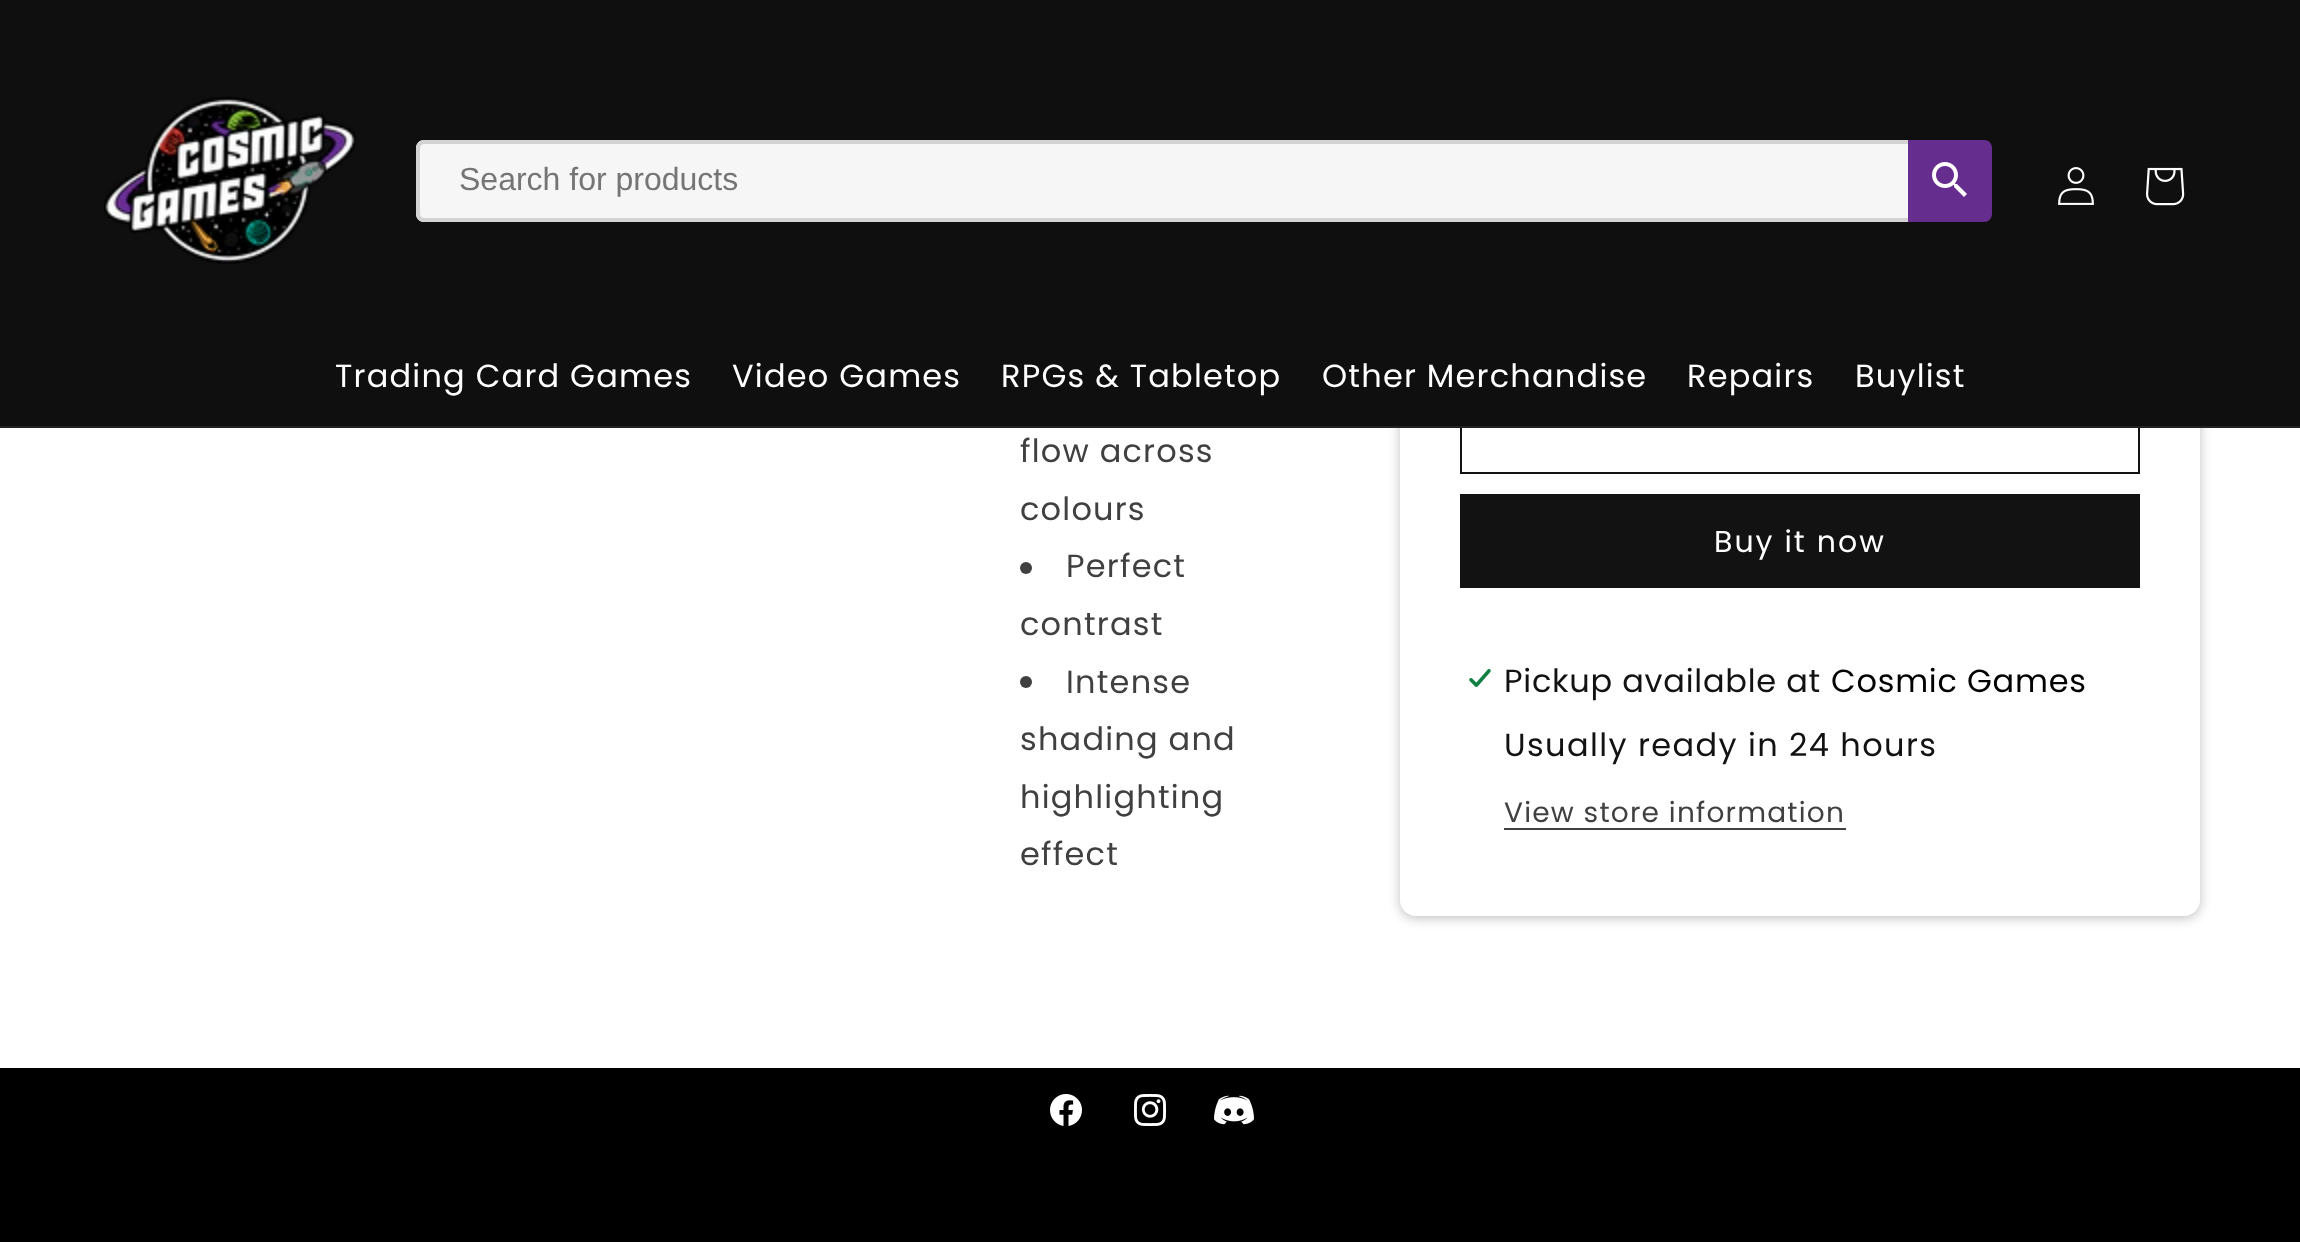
<svg xmlns="http://www.w3.org/2000/svg" width="2300" height="1242" viewBox="0 0 2300 1242">
  <rect width="100%" height="100%" fill="#fff"/>
  <rect x="1400" y="-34" width="800" height="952" rx="16" fill="#00000040" filter="blur(6px)"/>
  <rect x="1400" y="-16" width="800" height="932" rx="16" fill="#fff"/>
  <path d="M1461 381h678v92H1461z" fill="none" stroke="#121212" stroke-width="2"/>
  <path d="M0 0h2300v426H0z" fill="#0f0f0f"/>
  <path d="M0 426h2300v2H0z" fill="#222"/>
  <image x="104" y="96" width="252" height="168" href="img/1.png"/>
  <path d="M424 140H1908V222H424C419.5 222 416 218.5 416 214V148C416 143.5 419.5 140 424 140Z" fill="#f6f6f6"/>
  <path d="M424 140H1908V222H424C420 222 416 218 416 214V148C416 144 420 140 424 140ZM424 144H1908V218H424C422 218 420 216 420 214V148C420 146 422 144 424 144Z" fill="#d3d3d3" fill-rule="evenodd"/>
  <path d="M1908 140H1984C1988.5 140 1992 143.5 1992 148V214C1992 218.5 1988.5 222 1984 222H1908Z" fill="#652d8d"/>
  <image x="1932" y="162" width="35" height="35" href="img/2.png"/>
  <image x="2058" y="167" width="36" height="38" href="img/3.png"/>
  <image x="2146" y="167" width="39" height="39" href="img/4.png"/>
  <circle cx="1026" cy="568" r="6" fill="#404040"/>
  <circle cx="1026" cy="682" r="6" fill="#404040"/>
  <path d="M1460 494h680v94H1460z" fill="#121212"/>
  <image x="1469" y="669" width="22" height="18" href="img/5.png"/>
  <path d="M1504 828h342v2H1504z" fill="#404040"/>
  <path d="M0 1068h2300v174H0z" fill="#000"/>
  <image x="1050" y="1094" width="32" height="32" href="img/6.png"/>
  <image x="1134" y="1094" width="32" height="32" href="img/7.png"/>
  <image x="1214" y="1095" width="40" height="30" href="img/8.png"/>
  <text x="459" y="190" font-family="Liberation Sans" font-size="32" fill="#757575">Search for products</text>
  <g font-family="Poppins" font-size="32" letter-spacing="1.2" fill="#fff">
    <text x="335" y="387">Trading Card Games</text>
    <text x="732" y="387">Video Games</text>
    <text x="1001" y="387">RPGs &amp; Tabletop</text>
    <text x="1322" y="387">Other Merchandise</text>
    <text x="1687" y="387">Repairs</text>
    <text x="1855" y="387">Buylist</text>
  </g>
  <g font-family="Poppins" font-size="32" letter-spacing="1.2" fill="#404040">
    <text x="1020" y="462">flow across</text>
    <text x="1020" y="520">colours</text>
    <text x="1066" y="577">Perfect</text>
    <text x="1020" y="635">contrast</text>
    <text x="1066" y="693">Intense</text>
    <text x="1020" y="750">shading and</text>
    <text x="1020" y="808">highlighting</text>
    <text x="1020" y="865">effect</text>
  </g>
  <text x="1714" y="552" font-family="Poppins" font-size="30" letter-spacing="2" fill="#fff">Buy it now</text>
  <text x="1504" y="692" font-family="Poppins" font-size="32" letter-spacing="0.75" fill="#121212">Pickup available at</text>
  <text x="1831" y="692" font-family="Poppins" font-size="32" letter-spacing="0.75" fill="#000">Cosmic Games</text>
  <text x="1504" y="756" font-family="Poppins" font-size="32" letter-spacing="1.4" fill="#121212">Usually ready in 24 hours</text>
  <text x="1504" y="822" font-family="Poppins" font-size="28" letter-spacing="1.2" fill="#404040">View store information</text>
</svg>
